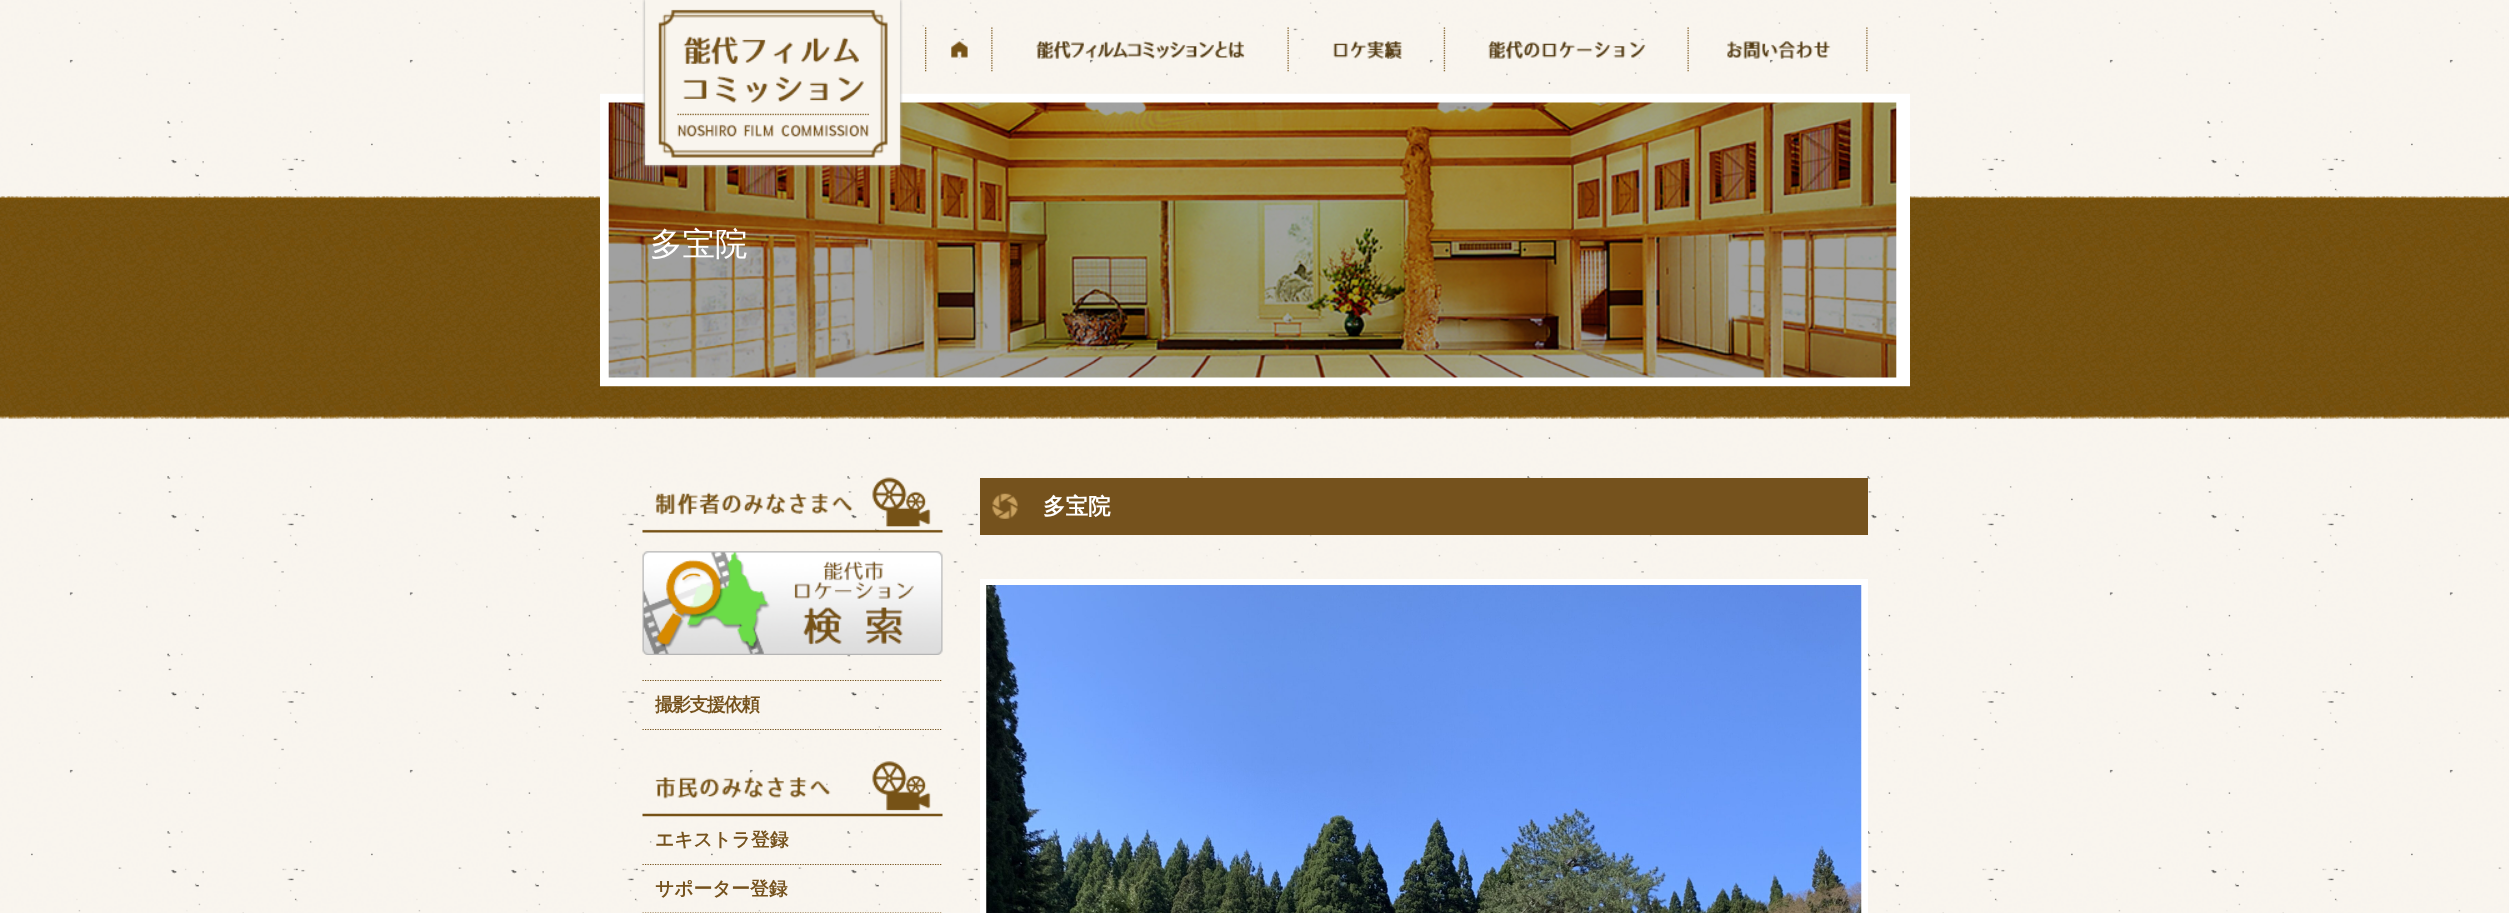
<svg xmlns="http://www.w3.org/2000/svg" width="2509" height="913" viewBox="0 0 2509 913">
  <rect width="100%" height="100%" fill="#fff"/>
  <image x="0" y="0" width="2509" height="913" href="img/1.png"/>
  <image x="0" y="196" width="2509" height="223" href="img/8.png"/>
  <image x="600" y="93" width="1310" height="294" href="img/9.png"/>
  <image x="642" y="0" width="261" height="168" href="img/2.png"/>
  <image x="925" y="27" width="43" height="45" href="img/3.png"/>
  <image x="991" y="27" width="254" height="45" href="img/4.png"/>
  <image x="1287" y="27" width="115" height="45" href="img/5.png"/>
  <image x="1443" y="27" width="203" height="45" href="img/6.png"/>
  <image x="1687" y="27" width="181" height="45" href="img/7.png"/>
  <path d="M980 478h888v57H980z" fill="#75521d"/>
  <image x="992" y="493" width="26" height="26" href="img/10.png"/>
  <path d="M980 579h888v334H980z" fill="#fff"/>
  <image x="986" y="585" width="876" height="328" href="img/11.png"/>
  <image x="642" y="477" width="301" height="56" href="img/12.png"/>
  <image x="642" y="551" width="301" height="104" href="img/13.png"/>
  <path d="M642.5 680.5H942.5" fill="none" stroke="#75521d" stroke-width="1.2" stroke-dasharray="1.25 1.25"/>
  <path d="M642.5 729.5H942.5" fill="none" stroke="#75521d" stroke-width="1.2" stroke-dasharray="1.25 1.25"/>
  <image x="642" y="761" width="301" height="56" href="img/14.png"/>
  <path d="M642.5 864.5H942.5" fill="none" stroke="#75521d" stroke-width="1.2" stroke-dasharray="1.25 1.25"/>
  <path d="M642.5 913H942.5" fill="none" stroke="#75521d" stroke-width="1.2" stroke-dasharray="1.25 1.25"/>
  <text x="650" y="255" font-family="WenQuanYi Zen Hei" font-size="32.5" font-weight="500" fill="#fff">多宝院</text>
  <text x="1043" y="514" font-family="WenQuanYi Zen Hei" font-size="22.5" font-weight="bold" fill="#fff">多宝院</text>
  <text x="655" y="711" font-family="WenQuanYi Zen Hei" font-size="18.75" font-weight="bold" letter-spacing="-1.5" fill="#75521d">撮影支援依頼</text>
  <g font-family="WenQuanYi Zen Hei" font-size="18.75" font-weight="bold" fill="#75521d">
    <text x="655" y="846">エキストラ登録</text>
    <text x="655" y="895">サポーター登録</text>
  </g>
</svg>
